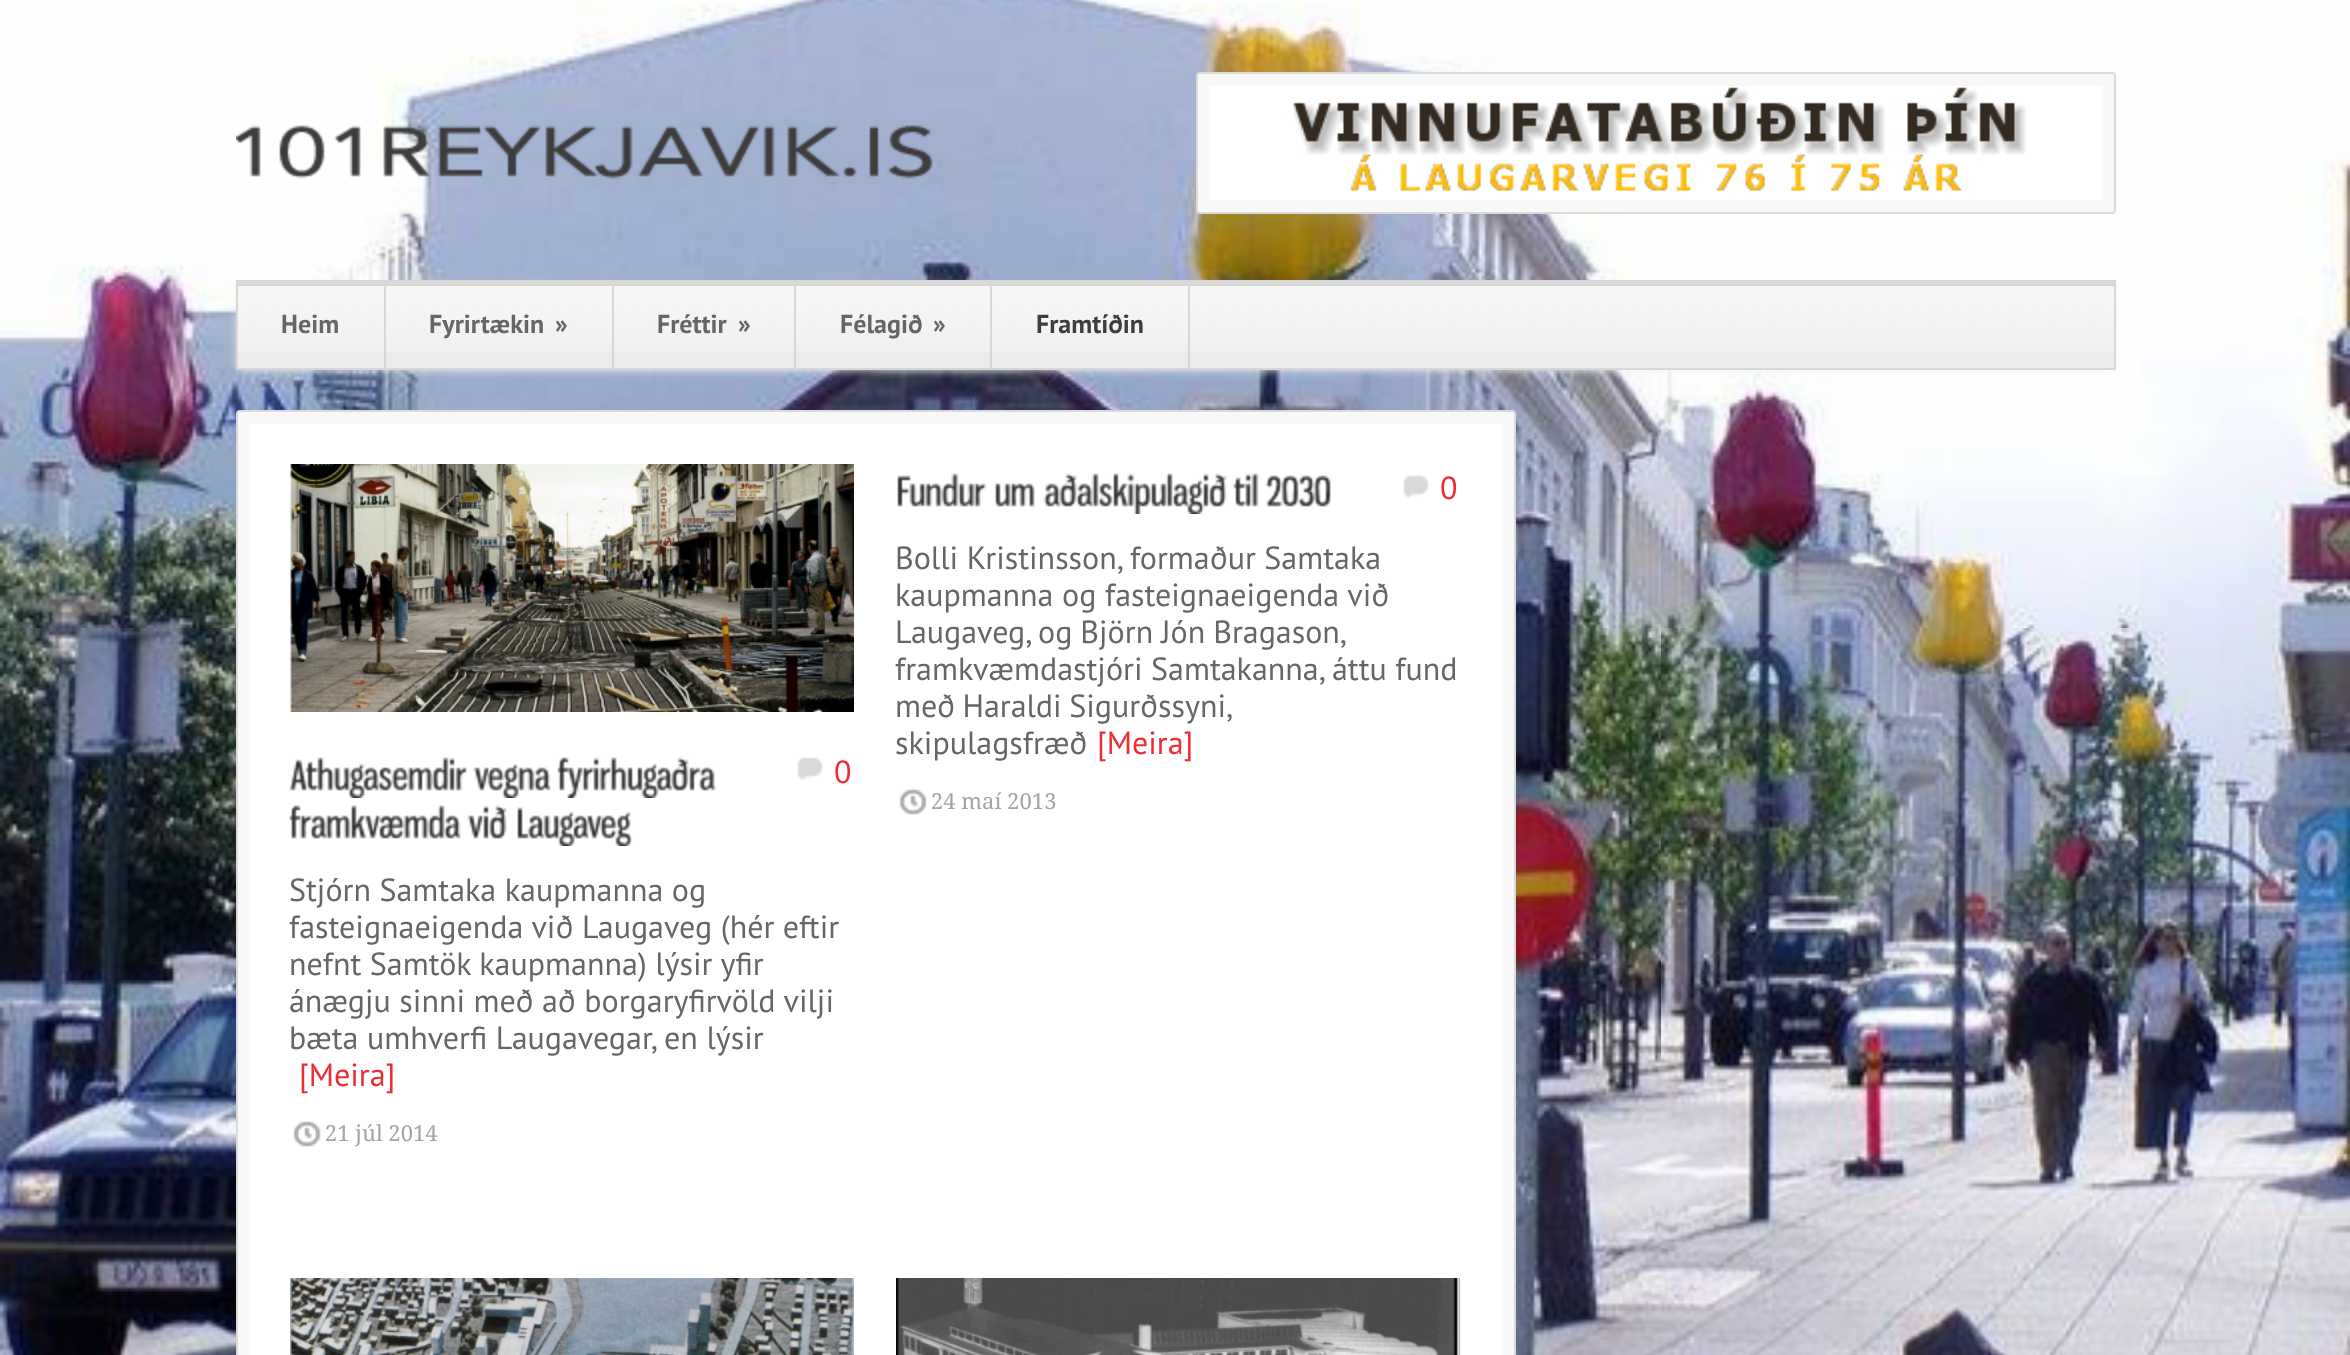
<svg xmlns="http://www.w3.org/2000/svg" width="2350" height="1355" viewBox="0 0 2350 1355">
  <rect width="100%" height="100%" fill="#fff"/>
  <image x="0" y="0" width="2350" height="1355" href="img/1.png"/>
  <image x="236" y="125" width="697" height="54" href="img/2.png"/>
  <rect x="1197" y="73" width="918" height="140" rx="3" fill="#f8f8f8" stroke="#dadada" stroke-width="2"/>
  <image x="1210" y="86" width="892" height="114" href="img/3.png"/>
  <path d="M236 280h1880v4H236z" fill="#d7d7d7"/>
  <path d="M238 288h1876v82H238z" fill="#f5f5f5" filter="blur(5px)"/>
  <path d="M238 286h1876v82H238z" fill="#ececec"/>
  <image x="238" y="286" width="1876" height="66" href="img/4.png"/>
  <path d="M237 285h1878v84H237z" fill="none" stroke="#d7d7d7" stroke-width="2"/>
  <path d="M384 286h2v82H384z" fill="#d7d7d7"/>
  <path d="M612 286h2v82H612z" fill="#d7d7d7"/>
  <path d="M794 286h2v82H794z" fill="#d7d7d7"/>
  <path d="M990 286h2v82H990z" fill="#d7d7d7"/>
  <path d="M1188 286h2v82H1188z" fill="#d7d7d7"/>
  <rect x="237" y="411" width="1278" height="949" rx="3" fill="#f8f8f8" stroke="#dadada" stroke-width="2"/>
  <path d="M250 424h1252v931H250z" fill="#fff"/>
  <image x="897" y="473" width="90" height="34" href="img/5.png"/>
  <image x="995" y="483" width="40" height="24" href="img/6.png"/>
  <image x="1043" y="473" width="184" height="41" href="img/7.png"/>
  <image x="1233" y="473" width="26" height="34" href="img/8.png"/>
  <image x="1265" y="475" width="66" height="32" href="img/9.png"/>
  <image x="1403" y="475" width="26" height="23" href="img/10.png"/>
  <image x="899" y="789" width="28" height="26" href="img/11.png"/>
  <image x="290" y="464" width="564" height="248" href="img/12.png"/>
  <image x="289" y="757" width="178" height="41" href="img/13.png"/>
  <image x="473" y="763" width="78" height="35" href="img/14.png"/>
  <image x="557" y="757" width="160" height="41" href="img/15.png"/>
  <image x="289" y="805" width="172" height="34" href="img/16.png"/>
  <image x="467" y="805" width="40" height="34" href="img/17.png"/>
  <image x="517" y="807" width="116" height="39" href="img/18.png"/>
  <image x="797" y="757" width="26" height="23" href="img/10.png"/>
  <image x="293" y="1121" width="28" height="26" href="img/19.png"/>
  <image x="290" y="1278" width="564" height="77" href="img/20.png"/>
  <image x="896" y="1278" width="564" height="77" href="img/21.png"/>
  <g font-family="PT Sans" font-size="26" font-weight="bold" fill="#666">
    <text x="281" y="333">Heim</text>
    <text x="429" y="333">Fyrirtækin</text>
    <text x="555" y="333">»</text>
    <text x="657" y="333">Fréttir</text>
    <text x="738" y="333">»</text>
    <text x="840" y="333">Félagið</text>
    <text x="933" y="333">»</text>
  </g>
  <text x="1036" y="333" font-family="PT Sans" font-size="26" font-weight="bold" fill="#3d3d3d">Framtíðin</text>
  <text x="1440" y="499" font-family="PT Sans" font-size="32" fill="#ef2c33">0</text>
  <g font-family="PT Sans" font-size="32" fill="#666">
    <text x="895" y="569">Bolli Kristinsson, formaður Samtaka</text>
    <text x="895" y="606">kaupmanna og fasteignaeigenda við</text>
    <text x="895" y="643" word-spacing="-0.5">Laugaveg, og Björn Jón Bragason,</text>
    <text x="895" y="680">framkvæmdastjóri Samtakanna, áttu fund</text>
    <text x="895" y="717" word-spacing="-1">með Haraldi Sigurðssyni,</text>
    <text x="895" y="754">skipulagsfræð</text>
  </g>
  <text x="1097" y="754" font-family="PT Sans" font-size="32" fill="#ef2c33">[Meira]</text>
  <text x="931" y="809" font-family="Droid Serif" font-size="22" fill="#a4a4a4">24 maí 2013</text>
  <text x="834" y="783" font-family="PT Sans" font-size="32" fill="#ef2c33">0</text>
  <g font-family="PT Sans" font-size="32" fill="#666">
    <text x="289" y="901">Stjórn Samtaka kaupmanna og</text>
    <text x="289" y="938">fasteignaeigenda við Laugaveg (hér eftir</text>
    <text x="289" y="975">nefnt Samtök kaupmanna) lýsir yfir</text>
    <text x="289" y="1012">ánægju sinni með að borgaryfirvöld vilji</text>
    <text x="289" y="1049">bæta umhverfi Laugavegar, en lýsir</text>
  </g>
  <text x="299" y="1086" font-family="PT Sans" font-size="32" fill="#ef2c33">[Meira]</text>
  <text x="325" y="1141" font-family="Droid Serif" font-size="22" fill="#a4a4a4">21 júl 2014</text>
</svg>
